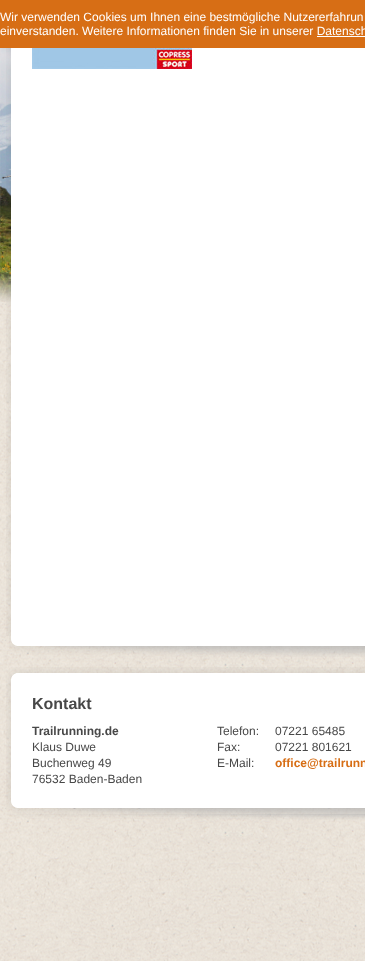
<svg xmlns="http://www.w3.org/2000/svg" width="365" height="961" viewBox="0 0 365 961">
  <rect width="100%" height="100%" fill="#fff"/>
  <image x="0" y="48" width="365" height="913" href="img/1.png"/>
  <path d="M0 0h365v48H0z" fill="#d76e15"/>
  <path d="M317 36h48v1H317z" fill="#fff"/>
  <image x="0" y="48" width="11" height="254" href="img/2.png"/>
  <image x="6" y="48" width="359" height="588" href="img/3.png"/>
  <image x="32" y="48" width="160" height="21" href="img/4.png"/>
  <image x="9" y="636" width="356" height="21" href="img/5.png"/>
  <image x="6" y="667" width="359" height="153" href="img/6.png"/>
  <g font-family="Liberation Sans" font-size="12" fill="#fff">
    <text x="0" y="21">Wir verwenden Cookies um Ihnen eine bestmögliche Nutzererfahrun</text>
    <text x="0" y="35">einverstanden. Weitere Informationen finden Sie in unserer Datensch</text>
  </g>
  <text x="32" y="709" font-family="Liberation Sans" font-size="16" font-weight="bold" fill="#484848">Kontakt</text>
  <text x="32" y="735" font-family="Liberation Sans" font-size="12" font-weight="bold" fill="#484848">Trailrunning.de</text>
  <g font-family="Liberation Sans" font-size="12" fill="#484848">
    <text x="32" y="751">Klaus Duwe</text>
    <text x="32" y="767">Buchenweg 49</text>
    <text x="32" y="783">76532 Baden-Baden</text>
    <text x="217" y="735">Telefon:</text>
    <text x="275" y="735">07221 65485</text>
    <text x="217" y="751">Fax:</text>
    <text x="275" y="751">07221 801621</text>
    <text x="217" y="767">E-Mail:</text>
  </g>
  <text x="275" y="767" font-family="Liberation Sans" font-size="12" font-weight="bold" fill="#d76e15">office@trailrunn</text>
</svg>
